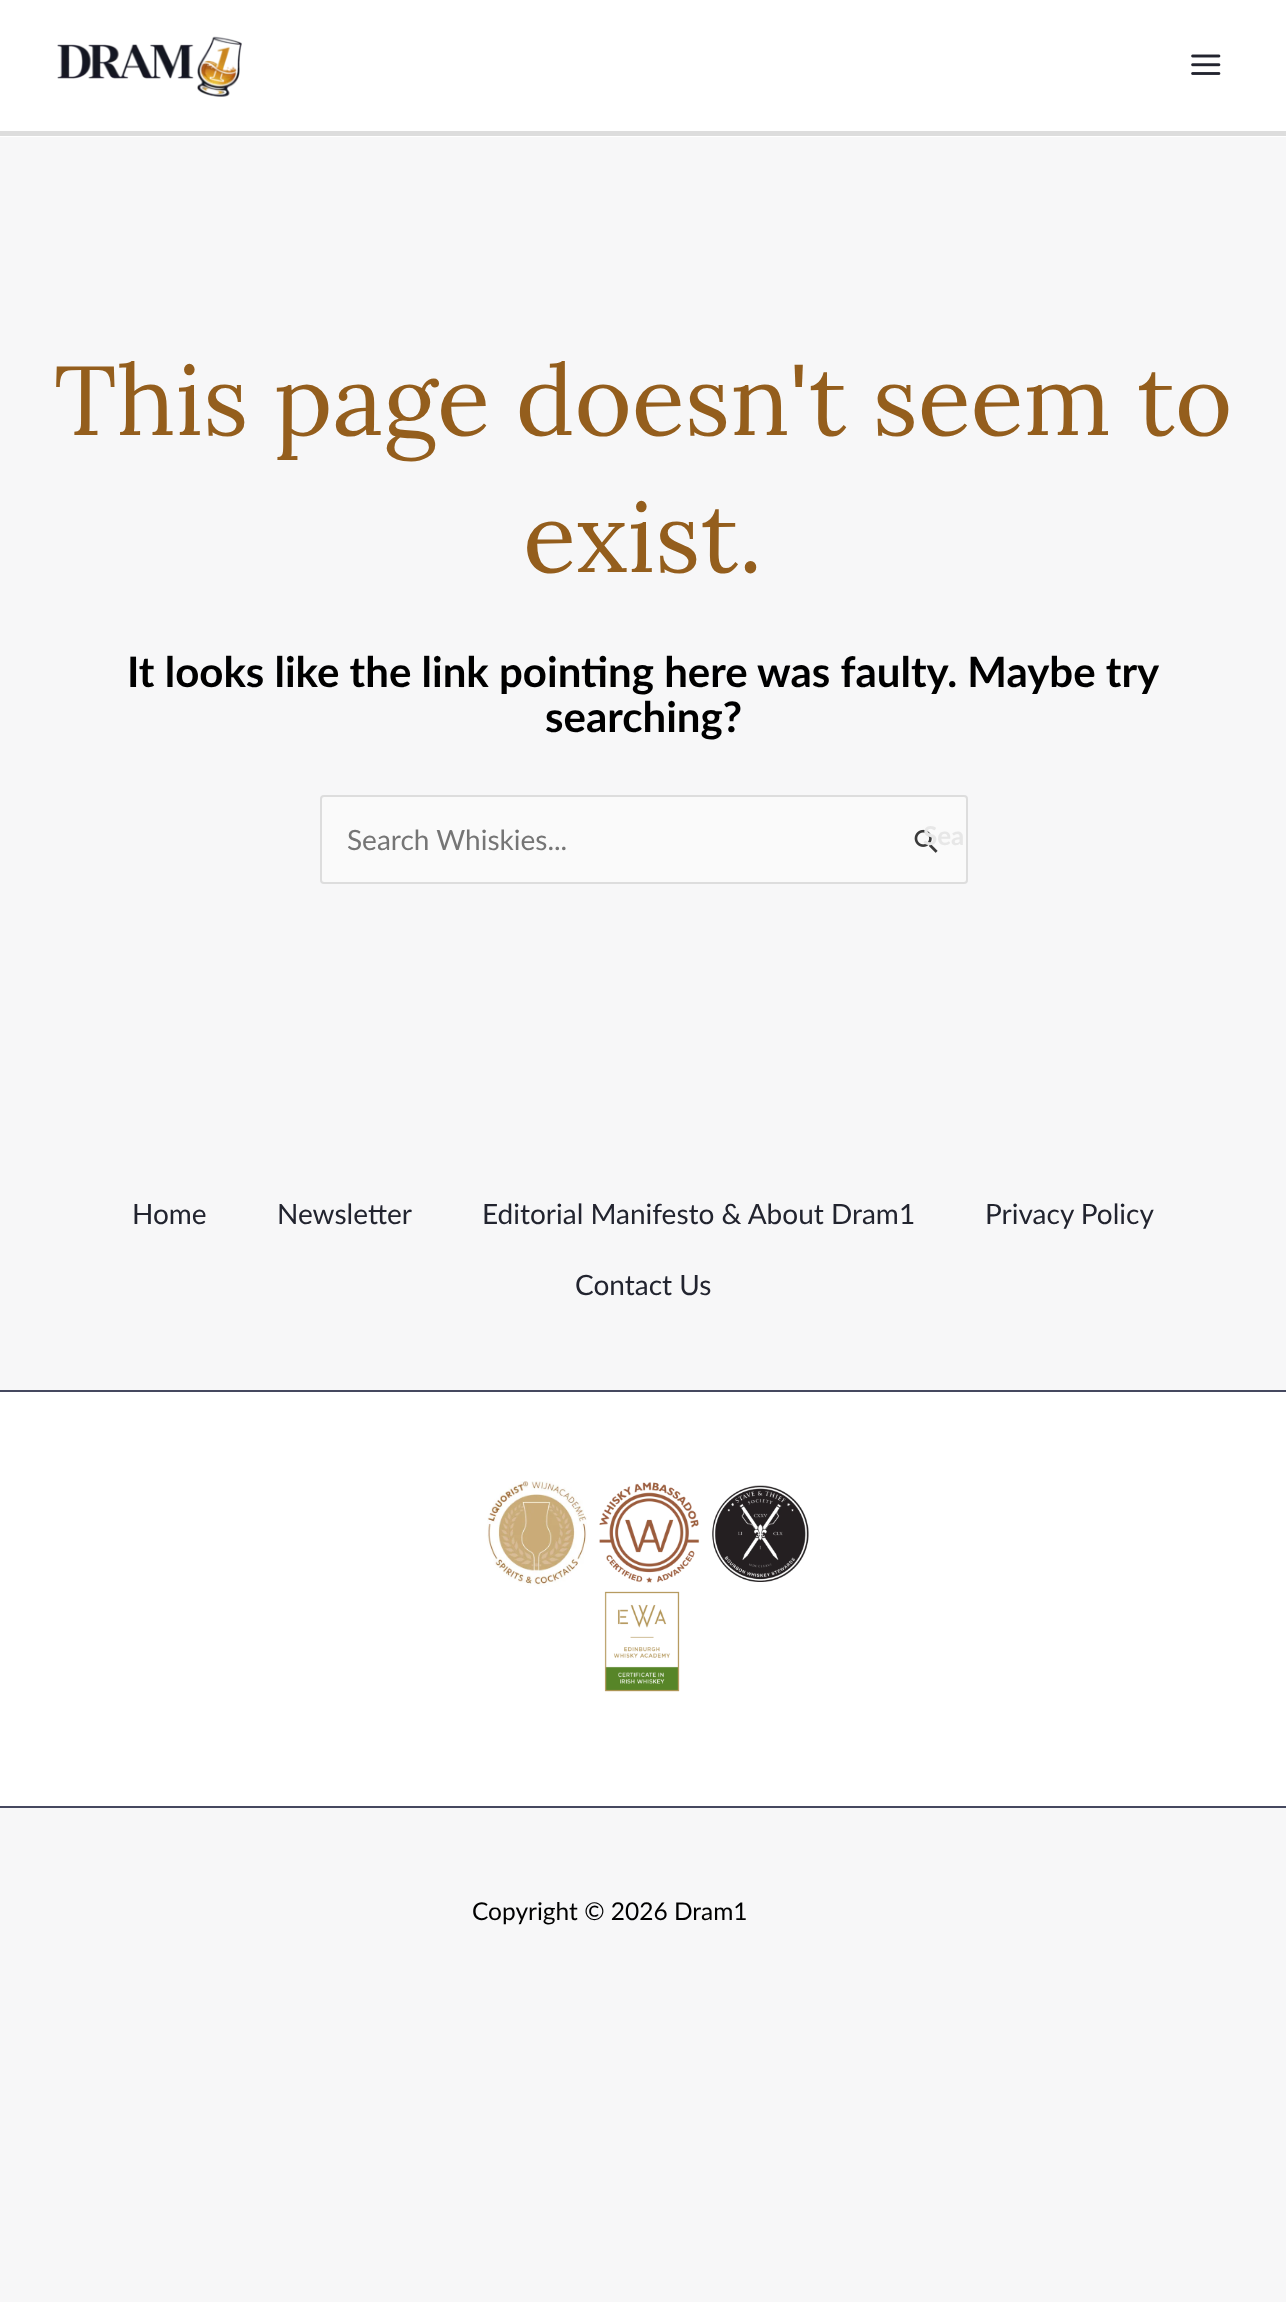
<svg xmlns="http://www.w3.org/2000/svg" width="1286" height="2302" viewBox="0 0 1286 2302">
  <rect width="100%" height="100%" fill="#f7f7f8"/>
  <path d="M0 0h1286v137H0z" fill="#fff"/>
  <path d="M0 131h1286v5H0z" fill="#ddd"/>
  <image x="57" y="36" width="185" height="61" href="img/1.png"/>
  <image x="1191" y="54" width="30" height="21" href="img/2.png"/>
  <rect x="321" y="796" width="646" height="87" rx="3" fill="#fafafa" stroke="#ddd" stroke-width="2"/>
  <image x="914" y="829" width="24" height="24" href="img/3.png"/>
  <path d="M0 1392h1286v414H0z" fill="#fff"/>
  <path d="M0 1390h1286v2H0z" fill="#45485f"/>
  <image x="487" y="1481" width="100" height="105" href="img/4.png"/>
  <image x="599" y="1482" width="101" height="101" href="img/5.png"/>
  <image x="712" y="1485" width="97" height="97" href="img/6.png"/>
  <image x="604" y="1591" width="76" height="101" href="img/7.png"/>
  <path d="M0 1806h1286v2H0z" fill="#45485f"/>
  <g font-family="Lora" font-size="98" fill="#945e1d">
    <text x="54" y="435">This page doesn't seem to</text>
    <text x="523" y="572">exist.</text>
  </g>
  <g font-family="Lato" font-size="42" font-weight="bold" fill="#000">
    <text x="127" y="687">It looks like the link pointing here was faulty. Maybe try</text>
    <text x="545" y="732">searching?</text>
  </g>
  <text x="347" y="850" font-family="Lato" font-size="28" fill="#757575">Search Whiskies...</text>
  <text x="923" y="845" font-family="Lato" font-size="26" font-weight="bold" fill="#e7e7e7">Sea</text>
  <g font-family="Lato" font-size="28" fill="#22242f">
    <text x="132" y="1224">Home</text>
    <text x="277" y="1224">Newsletter</text>
    <text x="482" y="1224">Editorial Manifesto &amp; About Dram1</text>
    <text x="985" y="1224">Privacy Policy</text>
    <text x="575" y="1295">Contact Us</text>
  </g>
  <text x="472" y="1920" font-family="Lato" font-size="24.5" fill="#000">Copyright © 2026 Dram1</text>
</svg>
